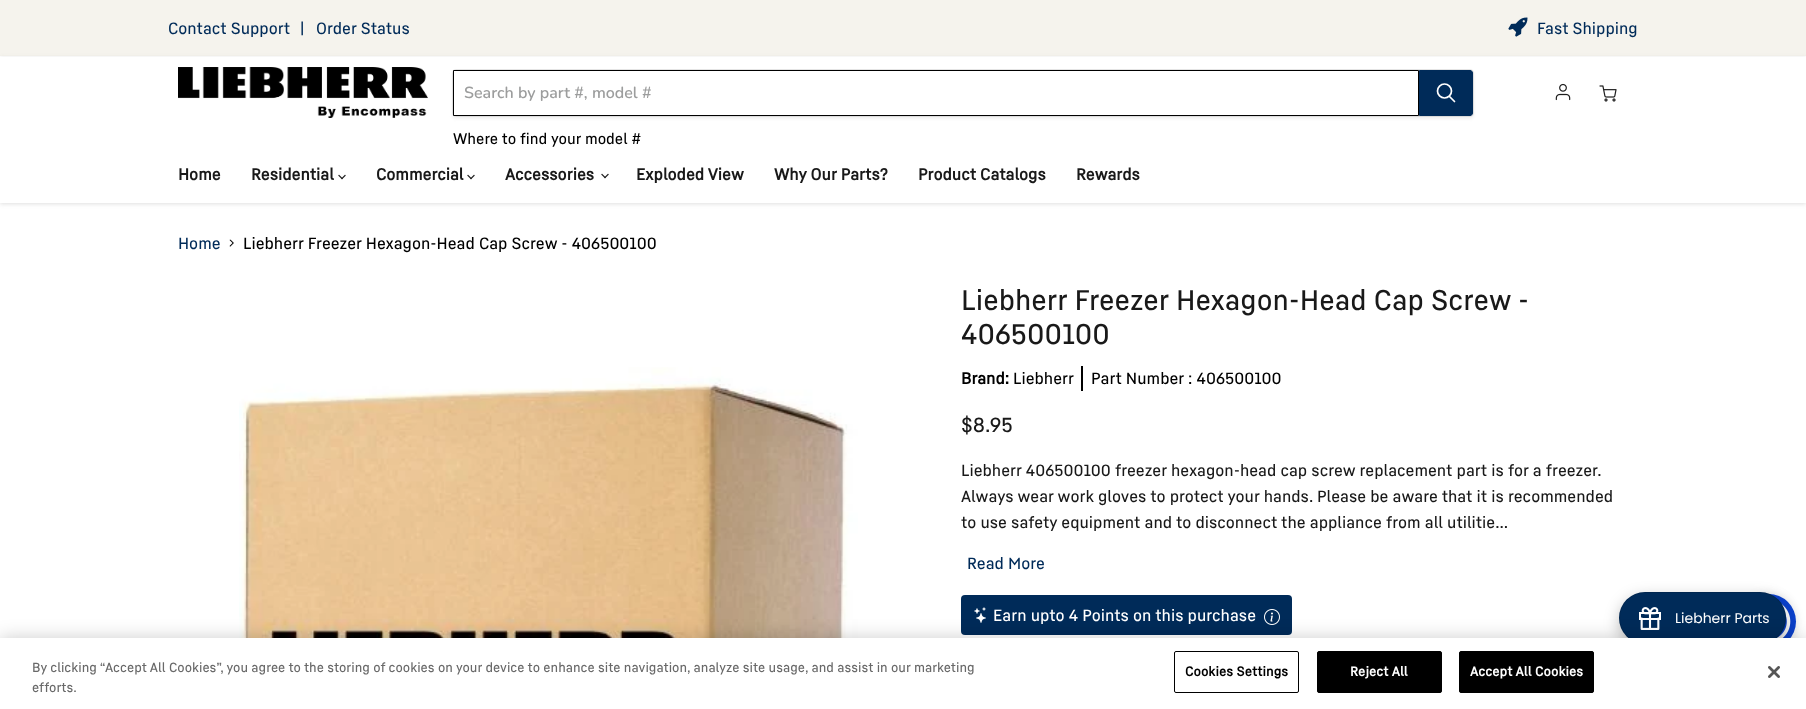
<svg xmlns="http://www.w3.org/2000/svg" width="1806" height="709" viewBox="0 0 1806 709">
  <defs>
    <clipPath id="clip1"><path d="M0 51H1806V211H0ZM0 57H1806V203H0Z" clip-rule="evenodd"/></clipPath>
  </defs>
  <rect width="100%" height="100%" fill="#fff"/>
  <path d="M0 0h1806v56H0z" fill="#f5f3ed"/>
  <image x="1508" y="17" width="20" height="20" href="img/1.png"/>
  <g clip-path="url(#clip1)">
    <path d="M0 58h1806v146H0z" fill="#80808040" filter="blur(2px)"/>
  </g>
  <image x="178" y="67" width="250" height="51" href="img/2.png"/>
  <rect x="452" y="71" width="1022" height="48" rx="4" fill="#8080801c" filter="blur(1.5px)"/>
  <rect x="452.5" y="69.5" width="1021" height="47" rx="3.5" fill="none" stroke="#80808033"/>
  <path d="M453.5 70.5h965v45H453.5z" fill="#fff" stroke="#000"/>
  <path d="M1419.5 70.5H1470C1471.5 70.5 1472.5 71.5 1472.5 73V113C1472.5 114.5 1471.5 115.5 1470 115.5H1419.5Z" fill="#002b59" stroke="#002b59"/>
  <path d="M1454.5 101.5L1449.5 96.5" fill="none" stroke="#fff" stroke-width="1.7" stroke-linecap="round"/>
  <circle cx="1444.5" cy="91" r="7" fill="none" stroke="#fff" stroke-width="1.7"/>
  <image x="1555" y="83" width="16" height="18" href="img/3.png"/>
  <image x="1599" y="85" width="18" height="17" href="img/4.png"/>
  <image x="338" y="174" width="8" height="6" href="img/5.png"/>
  <image x="467" y="174" width="8" height="6" href="img/5.png"/>
  <image x="601" y="173" width="8" height="6" href="img/5.png"/>
  <image x="229" y="239" width="5" height="8" href="img/6.png"/>
  <image x="239" y="367" width="619" height="271" href="img/7.png"/>
  <path d="M1081 366h2v25H1081z" fill="#000"/>
  <rect x="961" y="595" width="331" height="40" rx="4" fill="#002b59"/>
  <image x="974" y="607" width="12" height="16" href="img/8.png"/>
  <image x="1264" y="609" width="16" height="16" href="img/9.png"/>
  <rect x="1741" y="594" width="55" height="55" rx="27.5" fill="#0000001a" filter="blur(5px)"/>
  <circle cx="1768.5" cy="621.5" r="27.5" fill="#0c42ce"/>
  <image x="1776" y="603" width="15" height="35" href="img/10.png"/>
  <rect x="1619" y="597" width="167" height="52" rx="26" fill="#00000040" filter="blur(7.5px)"/>
  <rect x="1619" y="592" width="167" height="52" rx="26" fill="#002b59"/>
  <rect x="1619.5" y="592.5" width="166" height="51" rx="25.5" fill="none" stroke="#0000001a"/>
  <image x="1639" y="607" width="22" height="23" href="img/11.png"/>
  <path d="M0 638h1806v71H0z" fill="#00000033" filter="blur(9px)"/>
  <path d="M0 638h1806v71H0z" fill="#fff"/>
  <rect x="1174.5" y="651.5" width="124" height="41" rx="1.5" fill="none" stroke="#000"/>
  <rect x="1317.5" y="651.5" width="124" height="41" rx="1.5" fill="#000" stroke="#000"/>
  <rect x="1459.5" y="651.5" width="134" height="41" rx="1.5" fill="#000" stroke="#000"/>
  <image x="1768" y="666" width="12" height="12" href="img/12.png"/>
  <g font-family="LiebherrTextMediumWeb" font-size="16" font-weight="500" fill="#002b59">
    <text x="168" y="34">Contact Support</text>
    <text x="300" y="34">|</text>
    <text x="316" y="34">Order Status</text>
    <text x="1537" y="34">Fast Shipping</text>
  </g>
  <text x="464" y="98" font-family="Nunito" font-size="16" font-weight="600" fill="#9c9d9d">Search by part #, model #</text>
  <text x="453" y="144" font-family="LiebherrTextMediumWeb" font-size="15" font-weight="500" fill="#000">Where to find your model #</text>
  <g font-family="LiebherrTextMediumWeb" font-size="16" font-weight="bold" fill="#191919">
    <text x="178" y="180">Home</text>
    <text x="251" y="180">Residential</text>
    <text x="376" y="180">Commercial</text>
    <text x="505" y="180">Accessories</text>
    <text x="636" y="180">Exploded View</text>
    <text x="774" y="180">Why Our Parts?</text>
    <text x="918" y="180">Product Catalogs</text>
    <text x="1076" y="180">Rewards</text>
  </g>
  <text x="178" y="249" font-family="LiebherrTextMediumWeb" font-size="16" font-weight="500" fill="#002b59">Home</text>
  <text x="243" y="249" font-family="LiebherrTextMediumWeb" font-size="16" font-weight="500" fill="#000">Liebherr Freezer Hexagon-Head Cap Screw - 406500100</text>
  <g font-family="LiebherrTextMediumWeb" font-size="28" font-weight="500" fill="#191919">
    <text x="961" y="310">Liebherr Freezer Hexagon-Head Cap Screw -</text>
    <text x="961" y="344">406500100</text>
  </g>
  <text x="961" y="384" font-family="LiebherrTextMediumWeb" font-size="16" font-weight="bold" fill="#000">Brand:</text>
  <g font-family="LiebherrTextMediumWeb" font-size="16" font-weight="500" fill="#000">
    <text x="1013" y="384">Liebherr</text>
    <text x="1091" y="384">Part Number : 406500100</text>
  </g>
  <text x="961" y="432" font-family="LiebherrTextMediumWeb" font-size="20" font-weight="500" fill="#191919">$8.95</text>
  <g font-family="LiebherrTextMediumWeb" font-size="16" font-weight="500" fill="#191919">
    <text x="961" y="476">Liebherr 406500100 freezer hexagon-head cap screw replacement part is for a freezer.</text>
    <text x="961" y="502">Always wear work gloves to protect your hands. Please be aware that it is recommended</text>
    <text x="961" y="528">to use safety equipment and to disconnect the appliance from all utilitie...</text>
  </g>
  <text x="967" y="569" font-family="LiebherrTextMediumWeb" font-size="16" font-weight="500" fill="#002b59">Read More</text>
  <text x="993" y="621" font-family="LiebherrTextMediumWeb" font-size="16" font-weight="500" fill="#fff">Earn upto 4 Points on this purchase</text>
  <text x="1675" y="623" font-family="Poppins" font-size="14" fill="#fff">Liebherr Parts</text>
  <g font-family="LiebherrTextMediumWeb" font-size="13" font-weight="500" fill="#696969">
    <text x="32" y="672">By clicking “Accept All Cookies”, you agree to the storing of cookies on your device to enhance site navigation, analyze site usage, and assist in our marketing</text>
    <text x="32" y="692">efforts.</text>
  </g>
  <text x="1185" y="676" font-family="LiebherrTextMediumWeb" font-size="13" font-weight="bold" letter-spacing="0.1" fill="#000">Cookies Settings</text>
  <g font-family="LiebherrTextMediumWeb" font-size="13" font-weight="bold" letter-spacing="0.1" fill="#fff">
    <text x="1350" y="676">Reject All</text>
    <text x="1470" y="676">Accept All Cookies</text>
  </g>
</svg>
